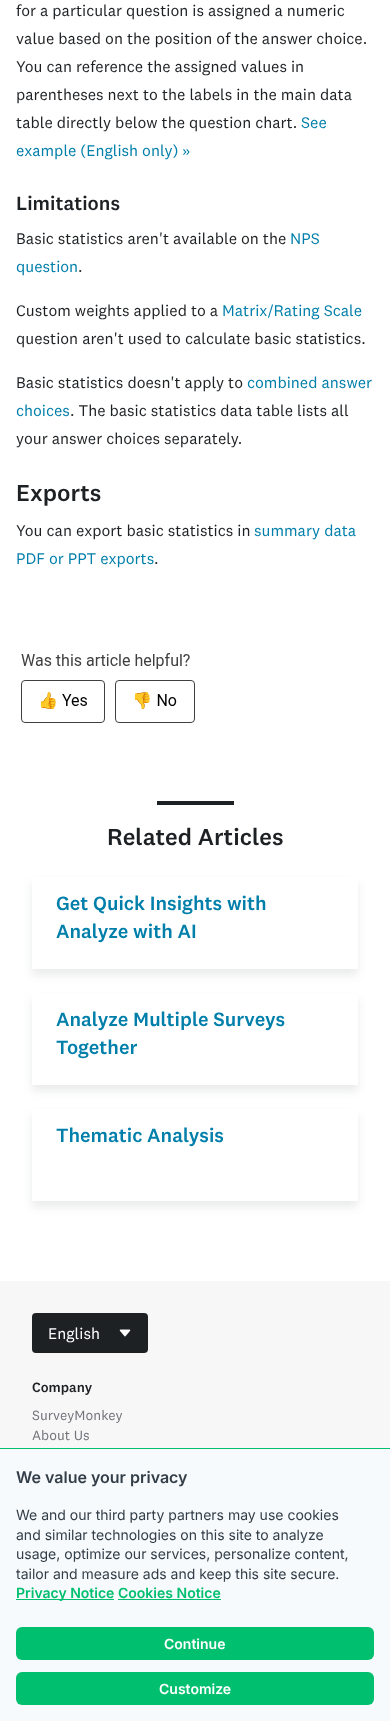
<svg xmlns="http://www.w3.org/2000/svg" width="390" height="1721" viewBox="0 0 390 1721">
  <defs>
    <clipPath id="clip1"><path d="M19 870H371V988H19ZM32 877H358V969H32Z" clip-rule="evenodd"/></clipPath>
    <clipPath id="clip2"><path d="M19 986H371V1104H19ZM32 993H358V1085H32Z" clip-rule="evenodd"/></clipPath>
    <clipPath id="clip3"><path d="M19 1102H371V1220H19ZM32 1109H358V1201H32Z" clip-rule="evenodd"/></clipPath>
  </defs>
  <rect width="100%" height="100%" fill="#fff"/>
  <image x="21" y="653" width="174" height="70" href="img/1.png"/>
  <path d="M157 801h77v4H157z" fill="#1e2124"/>
  <g clip-path="url(#clip1)">
    <path d="M32 883h326v92H32z" fill="#333e481a" filter="blur(4px)"/>
  </g>
  <g clip-path="url(#clip2)">
    <path d="M32 999h326v92H32z" fill="#333e481a" filter="blur(4px)"/>
  </g>
  <g clip-path="url(#clip3)">
    <path d="M32 1115h326v92H32z" fill="#333e481a" filter="blur(4px)"/>
  </g>
  <path d="M0 1281h390v167H0z" fill="#f7f7f7"/>
  <rect x="32" y="1313" width="116" height="40" rx="4" fill="#1e2124"/>
  <image x="119" y="1329" width="12" height="8" href="img/2.png"/>
  <path d="M0 1449h390v272H0z" fill="#f7fafc"/>
  <path d="M0 1448h390v1H0z" fill="#00bf6f"/>
  <path d="M16 1599h98v1H16z" fill="#00bf6f"/>
  <path d="M118 1599h103v1H118z" fill="#00bf6f"/>
  <rect x="16" y="1627" width="358" height="33" rx="6" fill="#00bf6f"/>
  <rect x="16" y="1672" width="358" height="33" rx="6" fill="#00bf6f"/>
  <g font-family="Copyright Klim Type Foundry" font-size="16" fill="#1e2124">
    <text x="16" y="16">for a particular question is assigned a numeric</text>
    <text x="16" y="44">value based on the position of the answer choice.</text>
    <text x="16" y="72">You can reference the assigned values in</text>
    <text x="16" y="100">parentheses next to the labels in the main data</text>
    <text x="16" y="128">table directly below the question chart.</text>
  </g>
  <g font-family="Copyright Klim Type Foundry" font-size="16" fill="#007faa">
    <text x="301" y="128">See</text>
    <text x="16" y="156">example (English only) »</text>
  </g>
  <text x="16" y="210" font-family="Copyright Klim Type Foundry" font-size="20" font-weight="500" fill="#1e2124">Limitations</text>
  <text x="16" y="244" font-family="Copyright Klim Type Foundry" font-size="16" fill="#1e2124">Basic statistics aren't available on the</text>
  <g font-family="Copyright Klim Type Foundry" font-size="16" fill="#007faa">
    <text x="290" y="244">NPS</text>
    <text x="16" y="272">question</text>
  </g>
  <g font-family="Copyright Klim Type Foundry" font-size="16" fill="#1e2124">
    <text x="78" y="272">.</text>
    <text x="16" y="316">Custom weights applied to a</text>
  </g>
  <text x="222" y="316" font-family="Copyright Klim Type Foundry" font-size="16" fill="#007faa">Matrix/Rating Scale</text>
  <g font-family="Copyright Klim Type Foundry" font-size="16" fill="#1e2124">
    <text x="16" y="344">question aren't used to calculate basic statistics.</text>
    <text x="16" y="388">Basic statistics doesn't apply to</text>
  </g>
  <g font-family="Copyright Klim Type Foundry" font-size="16" fill="#007faa">
    <text x="247" y="388">combined answer</text>
    <text x="16" y="416">choices</text>
  </g>
  <g font-family="Copyright Klim Type Foundry" font-size="16" fill="#1e2124">
    <text x="70" y="416">. The basic statistics data table lists all</text>
    <text x="16" y="444">your answer choices separately.</text>
  </g>
  <text x="16" y="501" font-family="Copyright Klim Type Foundry" font-size="24" font-weight="500" fill="#1e2124">Exports</text>
  <text x="16" y="536" font-family="Copyright Klim Type Foundry" font-size="16" fill="#1e2124">You can export basic statistics in</text>
  <g font-family="Copyright Klim Type Foundry" font-size="16" fill="#007faa">
    <text x="254" y="536">summary data</text>
    <text x="16" y="564">PDF or PPT exports</text>
  </g>
  <text x="154" y="564" font-family="Copyright Klim Type Foundry" font-size="16" fill="#1e2124">.</text>
  <text x="107" y="845" font-family="Copyright Klim Type Foundry" font-size="24" font-weight="500" fill="#1e2124">Related Articles</text>
  <g font-family="Copyright Klim Type Foundry" font-size="20" font-weight="500" fill="#007faa">
    <text x="56" y="910">Get Quick Insights with</text>
    <text x="56" y="938">Analyze with AI</text>
    <text x="56" y="1026">Analyze Multiple Surveys</text>
    <text x="56" y="1054">Together</text>
    <text x="56" y="1142">Thematic Analysis</text>
  </g>
  <text x="48" y="1339" font-family="Copyright Klim Type Foundry" font-size="16" fill="#fff">English</text>
  <text x="32" y="1392" font-family="Copyright Klim Type Foundry" font-size="14" font-weight="500" fill="#1e2124">Company</text>
  <g font-family="Copyright Klim Type Foundry" font-size="14" fill="#73747a">
    <text x="32" y="1420">SurveyMonkey</text>
    <text x="32" y="1440">About Us</text>
  </g>
  <text x="16" y="1483" font-family="Inter" font-size="16" font-weight="600" fill="#333e48">We value your privacy</text>
  <g font-family="Inter" font-size="14" fill="#333e48">
    <text x="16" y="1520">We and our third party partners may use cookies</text>
    <text x="16" y="1540">and similar technologies on this site to analyze</text>
    <text x="16" y="1559">usage, optimize our services, personalize content,</text>
    <text x="16" y="1579">tailor and measure ads and keep this site secure.</text>
  </g>
  <g font-family="Inter" font-size="14" font-weight="600" fill="#00bf6f">
    <text x="16" y="1598">Privacy Notice</text>
    <text x="118" y="1598">Cookies Notice</text>
  </g>
  <g font-family="Inter" font-size="14" font-weight="600" fill="#fff">
    <text x="164" y="1649">Continue</text>
    <text x="159" y="1694">Customize</text>
  </g>
</svg>
